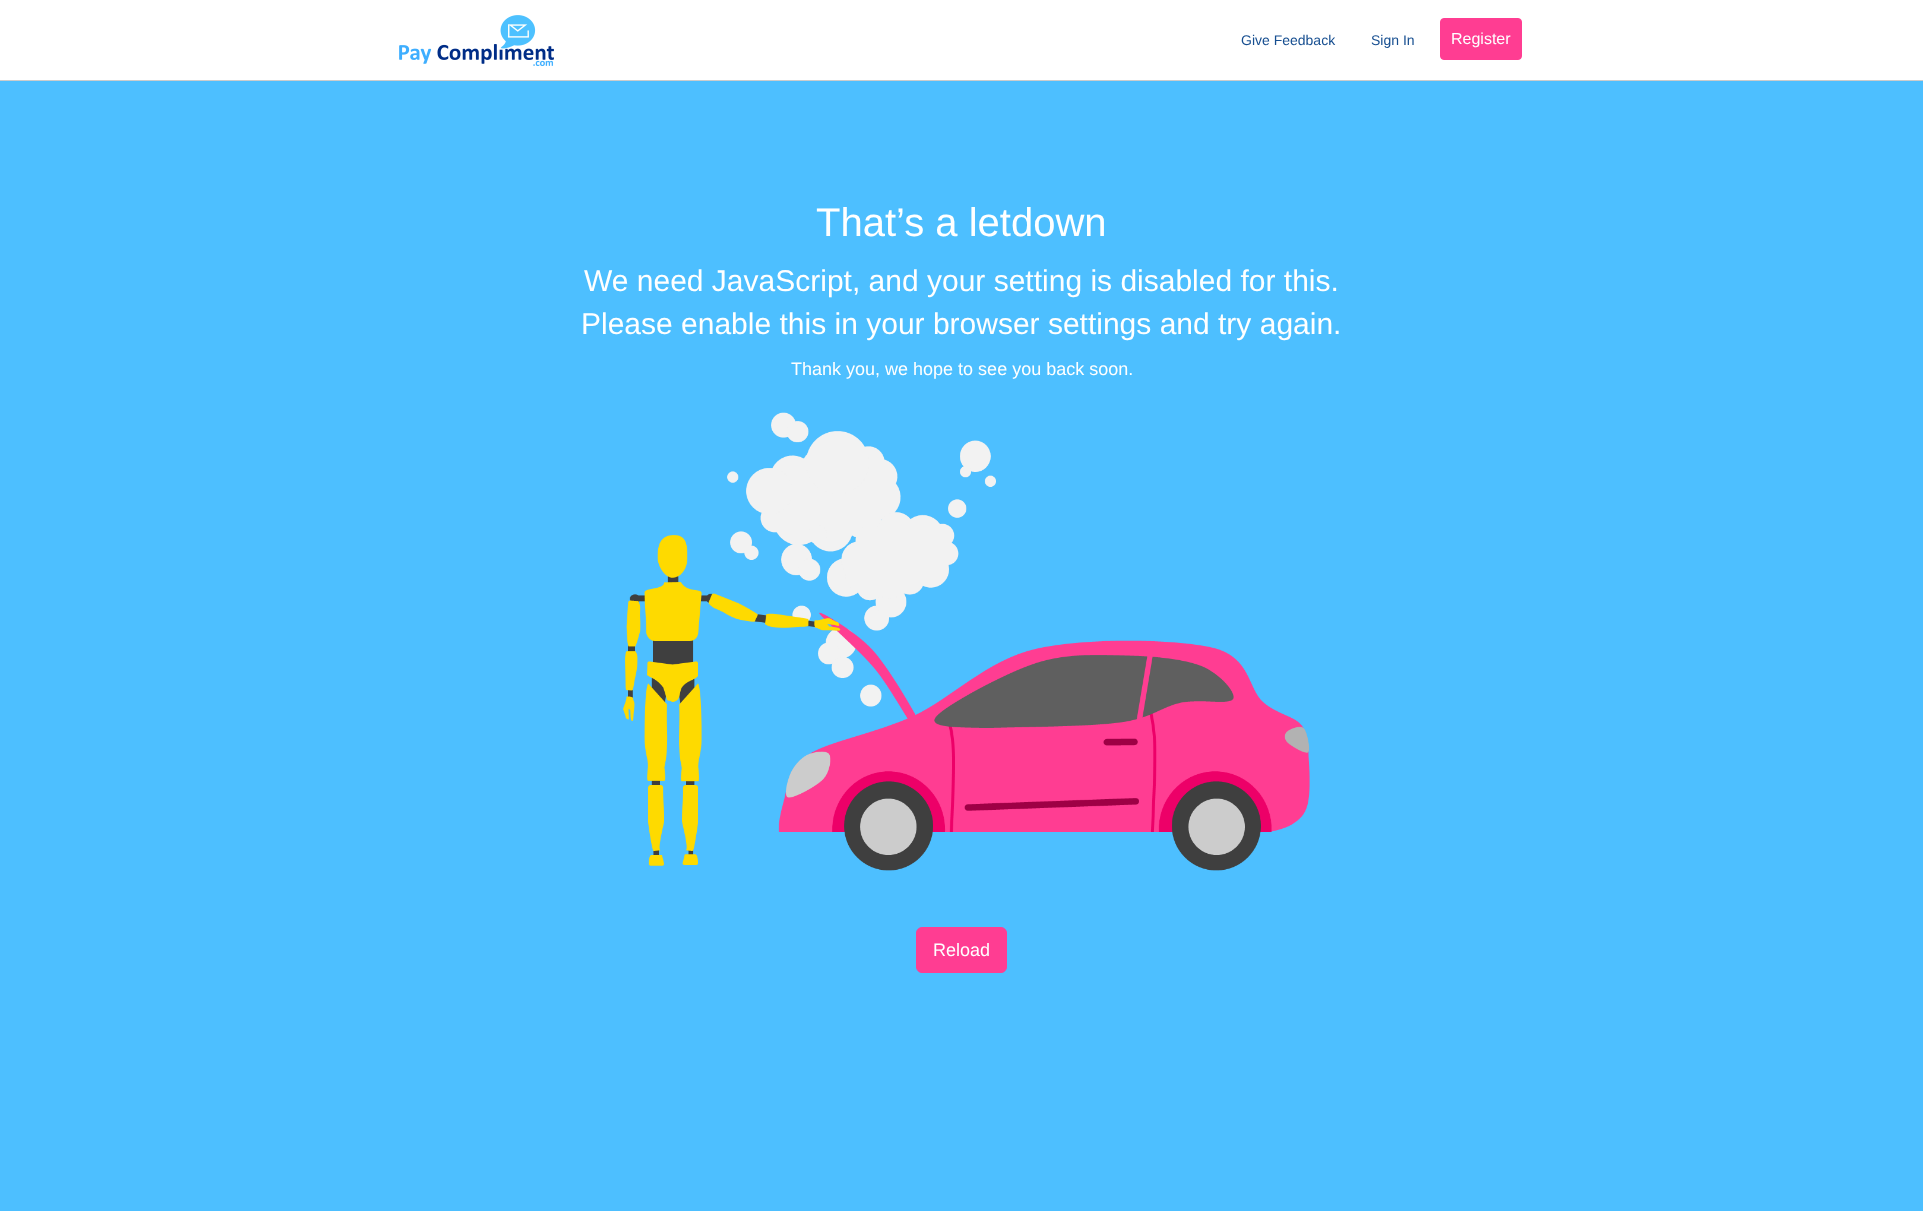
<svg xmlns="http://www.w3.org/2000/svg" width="1923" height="1211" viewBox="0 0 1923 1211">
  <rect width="100%" height="100%" fill="#4dbfff"/>
  <path d="M0 0h1923v80H0z" fill="#fff"/>
  <path d="M0 80h1923v1H0z" fill="#ccc"/>
  <image x="399" y="15" width="155" height="51" href="img/1.png"/>
  <rect x="1440.5" y="18.5" width="81" height="41" rx="3.5" fill="#ff3d92" stroke="#ff3d92"/>
  <image x="623" y="412" width="687" height="459" href="img/2.png"/>
  <rect x="916.5" y="927.5" width="90" height="45" rx="5.5" fill="#ff3d92" stroke="#ff3d92"/>
  <g font-family="Liberation Sans" font-size="14" fill="#164e90">
    <text x="1241" y="45">Give Feedback</text>
    <text x="1371" y="45">Sign In</text>
  </g>
  <text x="1451" y="44" font-family="Liberation Sans" font-size="16" fill="#fff">Register</text>
  <text x="816" y="236" font-family="Liberation Sans" font-size="40" fill="#fff">That’s a letdown</text>
  <g font-family="Liberation Sans" font-size="30" fill="#fff">
    <text x="584" y="291">We need JavaScript, and your setting is disabled for this.</text>
    <text x="581" y="334">Please enable this in your browser settings and try again.</text>
  </g>
  <g font-family="Liberation Sans" font-size="18" fill="#fff">
    <text x="791" y="375">Thank you, we hope to see you back soon.</text>
    <text x="933" y="956">Reload</text>
  </g>
</svg>
